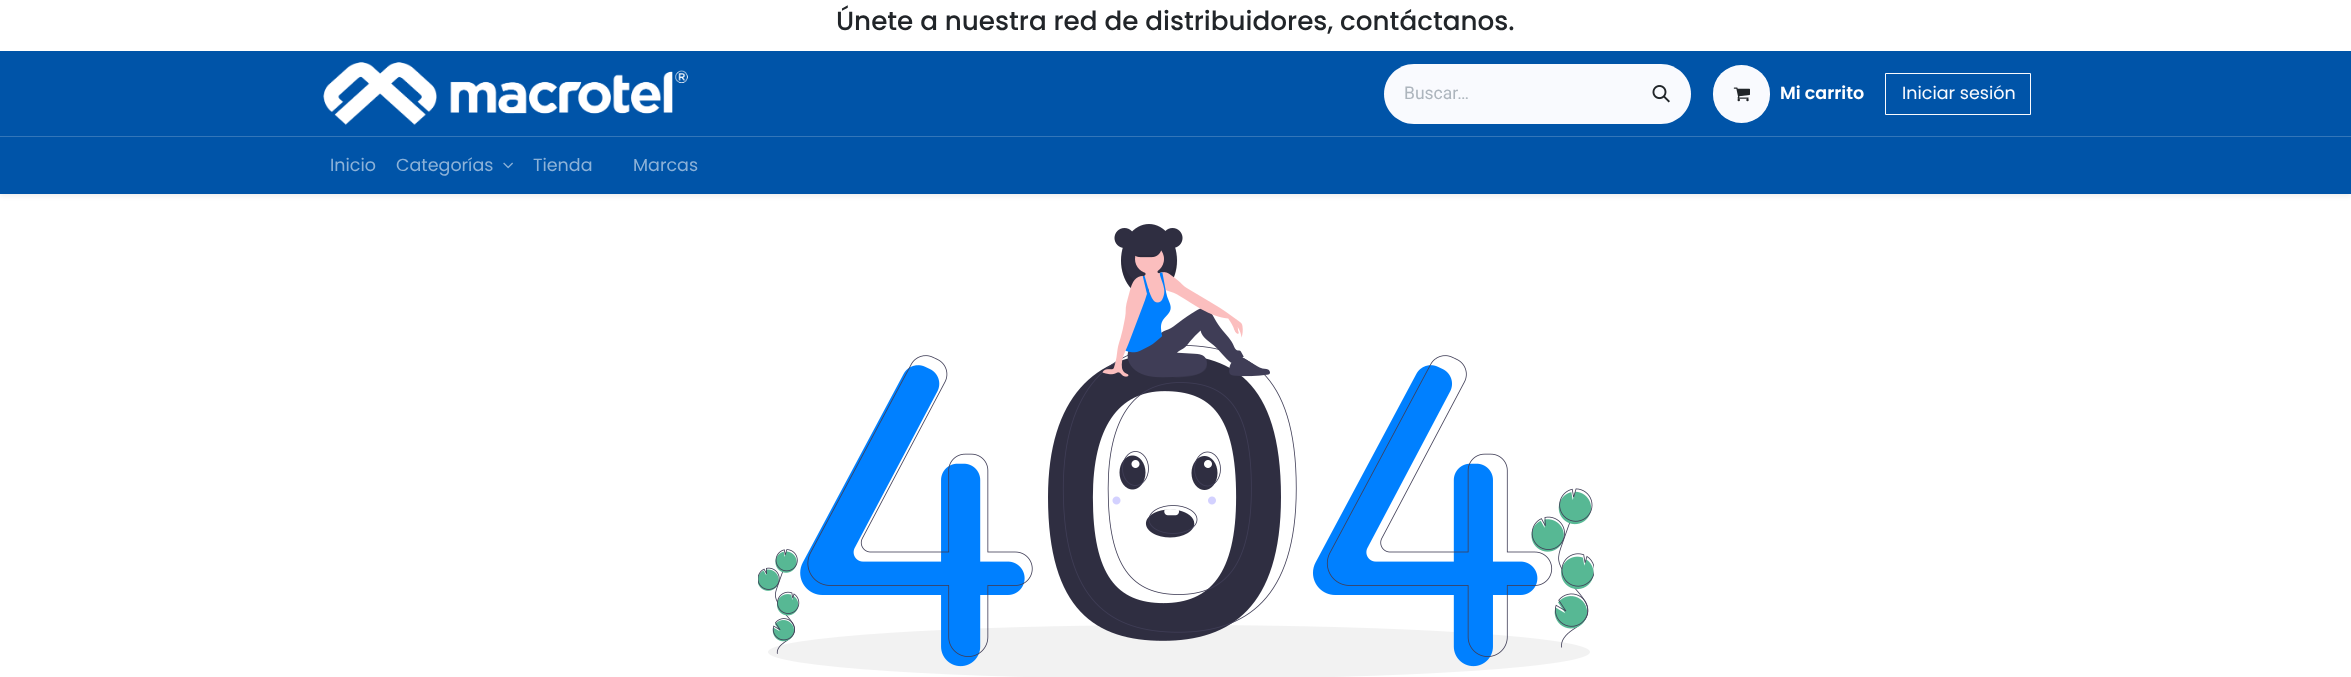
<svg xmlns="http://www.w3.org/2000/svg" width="2351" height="677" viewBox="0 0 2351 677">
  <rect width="100%" height="100%" fill="#fff"/>
  <path d="M0 3h2351v193H0z" fill="#00000012" filter="blur(2.5px)"/>
  <path d="M0 51h2351v143H0z" fill="#0054a8"/>
  <path d="M0 0h2351v51H0z" fill="#fff"/>
  <image x="323" y="62" width="365" height="63" href="img/1.png"/>
  <path d="M1414 64H1633V124H1414C1397.5 124 1384 110.5 1384 94C1384 77.5 1397.5 64 1414 64Z" fill="#f9fafe"/>
  <path d="M1631 64H1661C1677.5 64 1691 77.5 1691 94C1691 110.5 1677.5 124 1661 124H1631Z" fill="#f9fafe"/>
  <image x="1652" y="85" width="18" height="18" href="img/2.png"/>
  <rect x="1713" y="65" width="57" height="58" rx="28.5" fill="#f9fafe"/>
  <rect x="1713.5" y="65.5" width="56" height="57" rx="28" fill="none" stroke="#ffffff33"/>
  <image x="1733" y="87" width="17" height="15" href="img/3.png"/>
  <path d="M1885.5 73.5h145v41H1885.5z" fill="none" stroke="#f9fafe"/>
  <path d="M0 136h2351v1H0z" fill="#3376b9"/>
  <image x="503" y="162" width="10" height="7" href="img/4.png"/>
  <image x="758" y="224" width="836" height="453" href="img/5.png"/>
  <text x="836" y="30" font-family="Poppins" font-size="26.25" font-weight="500" fill="#212529">Únete a nuestra red de distribuidores, contáctanos.</text>
  <text x="1404" y="99" font-family="Roboto" font-size="17.5" fill="#adb5bd">Buscar…</text>
  <text x="1780" y="99" font-family="Poppins" font-size="17.5" font-weight="600" fill="#fff">Mi carrito</text>
  <text x="1902" y="99" font-family="Poppins" font-size="17.5" fill="#f9fafe">Iniciar sesión</text>
  <g font-family="Poppins" font-size="17.5" fill="#8cb2d8">
    <text x="330" y="171">Inicio</text>
    <text x="396" y="171">Categorías</text>
    <text x="533" y="171">Tienda</text>
    <text x="633" y="171">Marcas</text>
  </g>
</svg>
